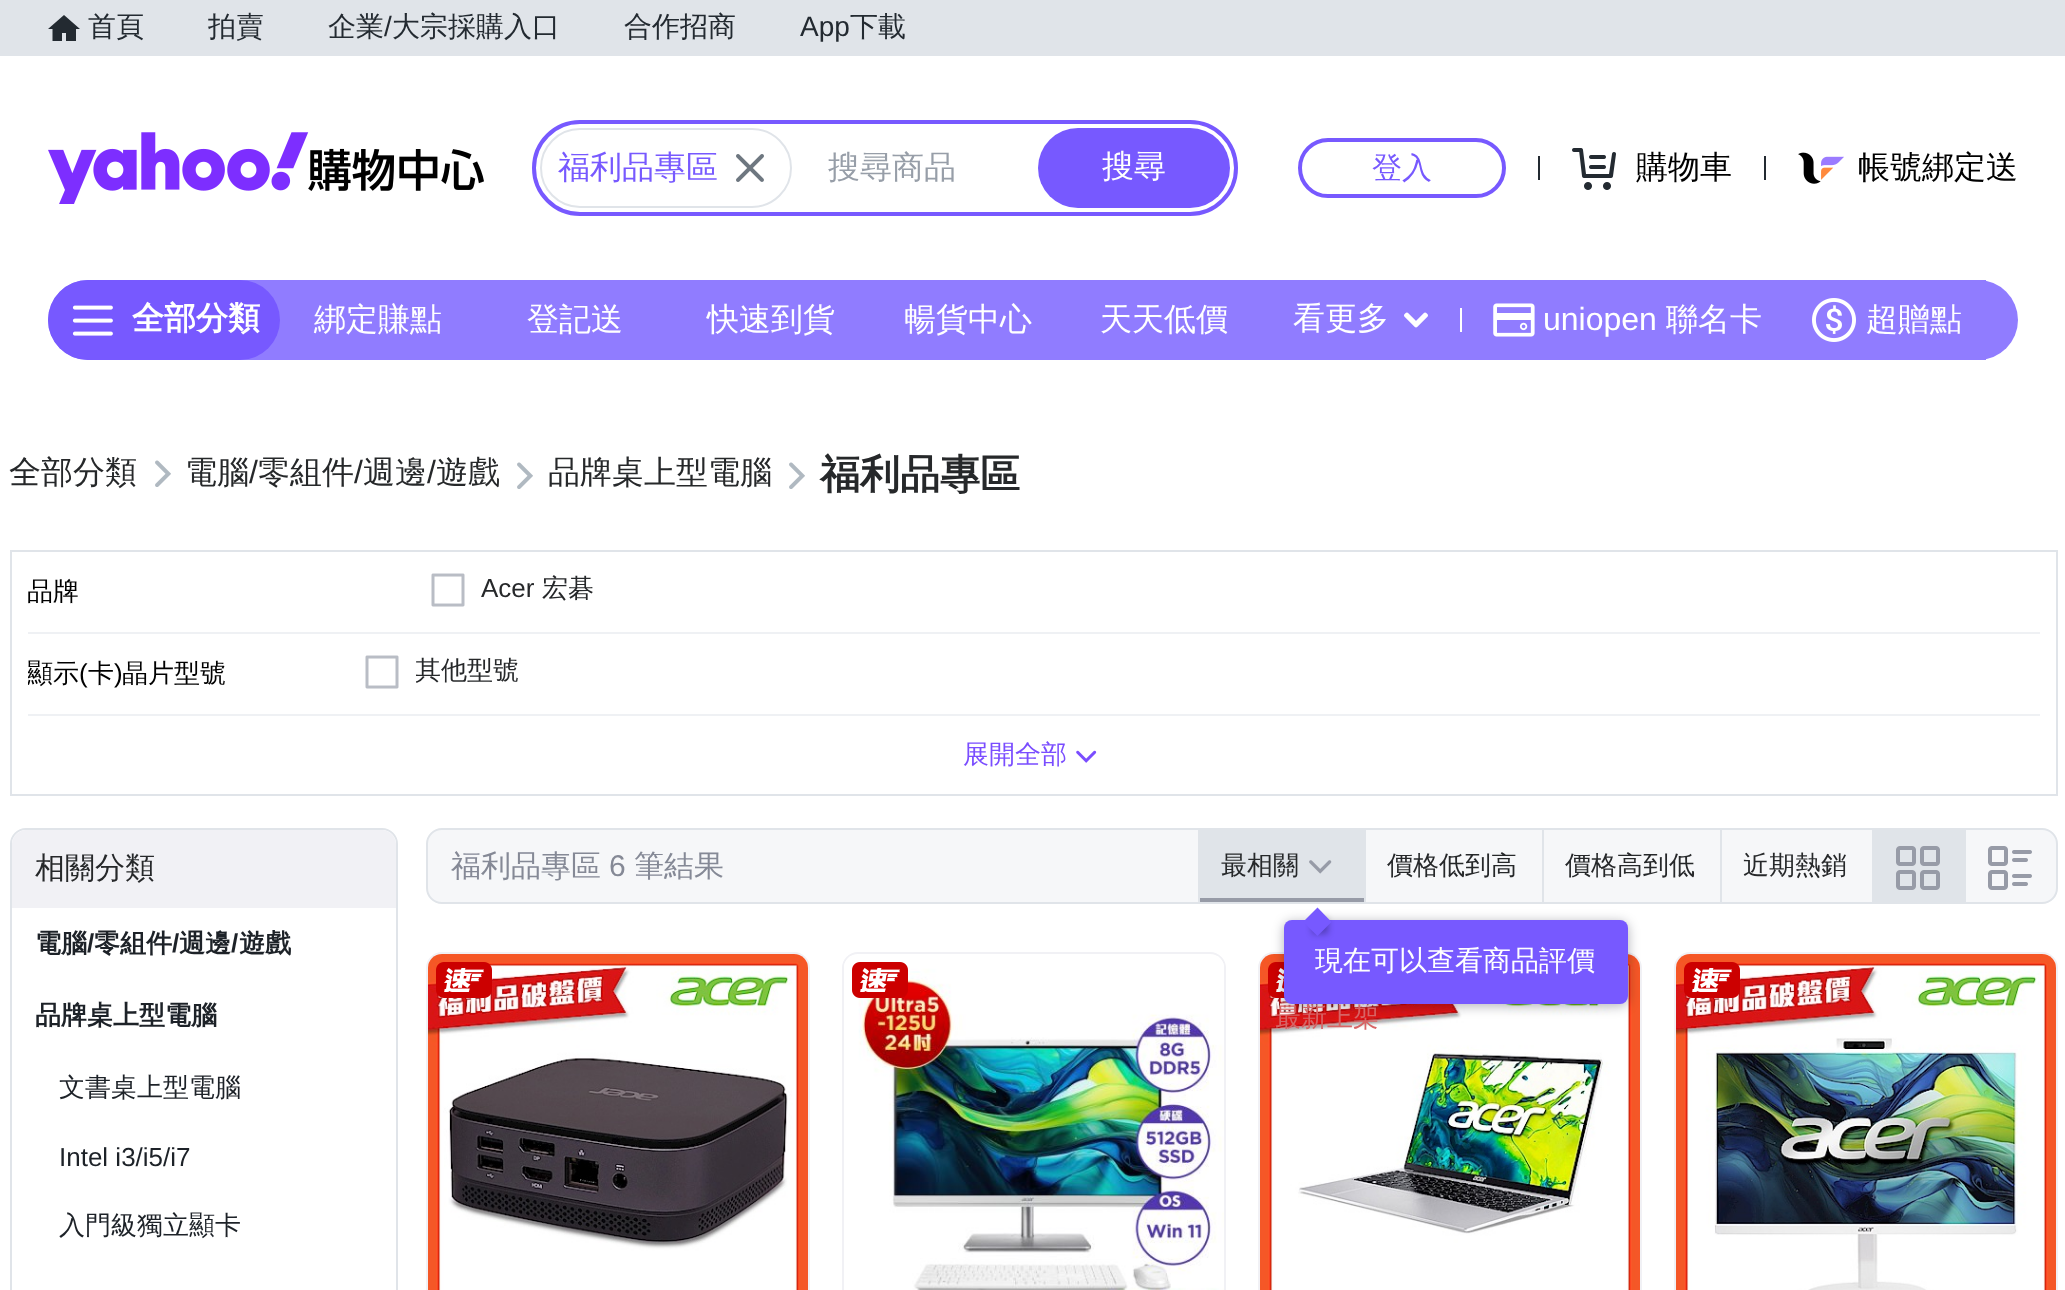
<svg xmlns="http://www.w3.org/2000/svg" width="2065" height="1290" viewBox="0 0 2065 1290">
  <defs>
    <clipPath id="clip1"><path d="M28 640h312v68H28z"/></clipPath>
    <clipPath id="clip2"><path d="M416 654h104v36H416z"/></clipPath>
  </defs>
  <rect width="100%" height="100%" fill="#fff"/>
  <path d="M0 0h2065v56H0z" fill="#e0e4e9"/>
  <path d="M64 15L48 29H52.5V41H62V33H66V41H76V29H80" fill="#232a31"/>
  <image x="48" y="132" width="436" height="72" href="img/1.png"/>
  <rect x="534" y="122" width="702" height="92" rx="46" fill="none" stroke="#7759ff" stroke-width="4"/>
  <rect x="541" y="129" width="250" height="78" rx="39" fill="none" stroke="#e0e4e9" stroke-width="2"/>
  <image x="736" y="154" width="28" height="28" href="img/2.png"/>
  <rect x="1038" y="128" width="192" height="80" rx="40" fill="#7759ff"/>
  <rect x="1300" y="140" width="204" height="56" rx="28" fill="none" stroke="#7759ff" stroke-width="4"/>
  <path d="M1538 156h2v24H1538z" fill="#232a31"/>
  <image x="1572" y="148" width="44" height="42" href="img/3.png"/>
  <path d="M1764 156h2v24H1764z" fill="#232a31"/>
  <image x="1798" y="152" width="46" height="32" href="img/4.png"/>
  <rect x="48" y="280" width="1970" height="80" rx="40" fill="#907cff"/>
  <rect x="48" y="280" width="232" height="80" rx="40" fill="#7759ff"/>
  <image x="72" y="305" width="41" height="31" href="img/5.png"/>
  <image x="1404" y="312" width="24" height="16" href="img/6.png"/>
  <path d="M1460 308h2v24H1460z" fill="#fff"/>
  <image x="1493" y="303" width="42" height="34" href="img/7.png"/>
  <path d="M1978 280h8v80H1978z" fill="#907cff"/>
  <image x="1812" y="298" width="44" height="44" href="img/8.png"/>
  <image x="155" y="460" width="16" height="27" href="img/9.png"/>
  <image x="517" y="462" width="16" height="27" href="img/9.png"/>
  <image x="789" y="462" width="16" height="27" href="img/9.png"/>
  <path d="M11 551h2046v244H11z" fill="none" stroke="#e0e4e9" stroke-width="2"/>
  <image x="431" y="573" width="34" height="34" href="img/10.png"/>
  <path d="M28 632h2012v2H28z" fill="#eff1f4"/>
  <image x="365" y="655" width="34" height="34" href="img/10.png"/>
  <path d="M28 714h2012v2H28z" fill="#eff1f4"/>
  <image x="1076" y="750" width="21" height="13" href="img/11.png"/>
  <rect x="11" y="829" width="386" height="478" rx="15" fill="none" stroke="#e0e4e9" stroke-width="2"/>
  <path d="M26 830H382C389.5 830 396 836.5 396 844V908H12V844C12 836.5 18.5 830 26 830Z" fill="#f1f1f5"/>
  <rect x="427" y="829" width="1630" height="74" rx="15" fill="#f6f7f9" stroke="#e0e4e9" stroke-width="2"/>
  <path d="M1200 830h164v68H1200z" fill="#e0e4e9"/>
  <path d="M1198 898h166v4H1198z" fill="#979ba7"/>
  <path d="M1198 830h2v72H1198z" fill="#e0e4e9"/>
  <image x="1309" y="860" width="23" height="14" href="img/12.png"/>
  <path d="M1364 830h2v72H1364z" fill="#e0e4e9"/>
  <path d="M1542 830h2v72H1542z" fill="#e0e4e9"/>
  <path d="M1720 830h2v72H1720z" fill="#e0e4e9"/>
  <path d="M1872 830h94v72H1872z" fill="#e0e4e9"/>
  <image x="1896" y="846" width="44" height="44" href="img/13.png"/>
  <image x="1988" y="846" width="44" height="44" href="img/14.png"/>
  <rect x="1259" y="953" width="382" height="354" rx="15" fill="none" stroke="#f1f1f5" stroke-width="2"/>
  <image x="1260" y="954" width="380" height="336" href="img/19.png"/>
  <image x="1268" y="962" width="17" height="36" href="img/20.png"/>
  <rect x="1284" y="922" width="344" height="84" rx="8" fill="#0000144d" filter="blur(6px)"/>
  <rect x="1284" y="920" width="344" height="84" rx="8" fill="#7759ff"/>
  <path d="M1312 918h16v16H1312z" fill="#0000144d" filter="blur(3px)"/>
  <path d="M1317.5 936L1303 922L1317.5 907.5L1331.5 922Z" fill="#7759ff"/>
  <rect x="427" y="953" width="382" height="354" rx="15" fill="none" stroke="#f1f1f5" stroke-width="2"/>
  <image x="428" y="954" width="380" height="336" href="img/15.png"/>
  <image x="436" y="962" width="56" height="36" href="img/16.png"/>
  <rect x="843" y="953" width="382" height="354" rx="15" fill="none" stroke="#f1f1f5" stroke-width="2"/>
  <image x="844" y="956" width="380" height="334" href="img/17.png"/>
  <image x="852" y="962" width="56" height="36" href="img/18.png"/>
  <rect x="1675" y="953" width="382" height="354" rx="15" fill="none" stroke="#f1f1f5" stroke-width="2"/>
  <image x="1676" y="954" width="380" height="336" href="img/21.png"/>
  <image x="1684" y="962" width="56" height="36" href="img/22.png"/>
  <g font-family="WenQuanYi Zen Hei" font-size="28" font-weight="500" fill="#232a31">
    <text x="88" y="36">首頁</text>
    <text x="208" y="36">拍賣</text>
    <text x="328" y="36">企業</text>
  </g>
  <text x="384" y="36" font-family="Liberation Sans" font-size="28" fill="#232a31">/</text>
  <g font-family="WenQuanYi Zen Hei" font-size="28" font-weight="500" fill="#232a31">
    <text x="392" y="36">大宗採購入口</text>
    <text x="624" y="36">合作招商</text>
  </g>
  <text x="800" y="36" font-family="Liberation Sans" font-size="28" fill="#232a31">App</text>
  <text x="850" y="36" font-family="WenQuanYi Zen Hei" font-size="28" font-weight="500" fill="#232a31">下載</text>
  <text x="558" y="178" font-family="WenQuanYi Zen Hei" font-size="32" font-weight="500" fill="#7759ff">福利品專區</text>
  <text x="828" y="178" font-family="WenQuanYi Zen Hei" font-size="32" font-weight="500" fill="#979ea8">搜尋商品</text>
  <text x="1102" y="177" font-family="WenQuanYi Zen Hei" font-size="32" font-weight="500" fill="#fff">搜尋</text>
  <text x="1372" y="178" font-family="WenQuanYi Zen Hei" font-size="30" font-weight="500" fill="#7759ff">登入</text>
  <g font-family="WenQuanYi Zen Hei" font-size="32" font-weight="500" fill="#000">
    <text x="1636" y="178">購物車</text>
    <text x="1858" y="178">帳號綁定送</text>
  </g>
  <text x="132" y="329" font-family="WenQuanYi Zen Hei" font-size="32" font-weight="bold" fill="#fff">全部分類</text>
  <g font-family="WenQuanYi Zen Hei" font-size="32" font-weight="500" fill="#fff">
    <text x="314" y="330">綁定賺點</text>
    <text x="527" y="330">登記送</text>
    <text x="707" y="330">快速到貨</text>
    <text x="904" y="330">暢貨中心</text>
    <text x="1100" y="330">天天低價</text>
    <text x="1293" y="329">看更多</text>
  </g>
  <text x="1543" y="330" font-family="Liberation Sans" font-size="32" fill="#fff">uniopen</text>
  <g font-family="WenQuanYi Zen Hei" font-size="32" font-weight="500" fill="#fff">
    <text x="1666" y="330">聯名卡</text>
    <text x="1866" y="330">超贈點</text>
  </g>
  <g font-family="WenQuanYi Zen Hei" font-size="32" font-weight="500" fill="#26282a">
    <text x="9" y="483">全部分類</text>
    <text x="185" y="483">電腦</text>
  </g>
  <text x="249" y="483" font-family="Liberation Sans" font-size="32" fill="#26282a">/</text>
  <text x="258" y="483" font-family="WenQuanYi Zen Hei" font-size="32" font-weight="500" fill="#26282a">零組件</text>
  <text x="354" y="483" font-family="Liberation Sans" font-size="32" fill="#26282a">/</text>
  <text x="363" y="483" font-family="WenQuanYi Zen Hei" font-size="32" font-weight="500" fill="#26282a">週邊</text>
  <text x="427" y="483" font-family="Liberation Sans" font-size="32" fill="#26282a">/</text>
  <g font-family="WenQuanYi Zen Hei" font-size="32" font-weight="500" fill="#26282a">
    <text x="436" y="483">遊戲</text>
    <text x="548" y="483">品牌桌上型電腦</text>
  </g>
  <text x="820" y="488" font-family="WenQuanYi Zen Hei" font-size="40" font-weight="bold" fill="#26282a">福利品專區</text>
  <text x="27" y="600" font-family="WenQuanYi Zen Hei" font-size="26" font-weight="500" fill="#000">品牌</text>
  <text x="481" y="597" font-family="Liberation Sans" font-size="26" fill="#26282a">Acer</text>
  <text x="542" y="597" font-family="WenQuanYi Zen Hei" font-size="26" font-weight="500" fill="#26282a">宏碁</text>
  <g clip-path="url(#clip1)">
    <text x="27" y="682" font-family="WenQuanYi Zen Hei" font-size="26" font-weight="500" fill="#000">顯示</text>
  </g>
  <text x="79" y="682" font-family="Liberation Sans" font-size="26" fill="#000">(</text>
  <text x="88" y="682" font-family="WenQuanYi Zen Hei" font-size="26" font-weight="500" fill="#000">卡</text>
  <text x="114" y="682" font-family="Liberation Sans" font-size="26" fill="#000">)</text>
  <text x="122" y="682" font-family="WenQuanYi Zen Hei" font-size="26" font-weight="500" fill="#000">晶片型號</text>
  <g clip-path="url(#clip2)">
    <text x="415" y="679" font-family="WenQuanYi Zen Hei" font-size="26" font-weight="500" fill="#26282a">其他型號</text>
  </g>
  <text x="963" y="763" font-family="WenQuanYi Zen Hei" font-size="26" font-weight="500" fill="#7a4dff">展開全部</text>
  <text x="35" y="878" font-family="WenQuanYi Zen Hei" font-size="30" font-weight="500" fill="#26282a">相關分類</text>
  <text x="35" y="952" font-family="WenQuanYi Zen Hei" font-size="26" font-weight="bold" fill="#1d2228">電腦</text>
  <text x="87" y="952" font-family="Liberation Sans" font-size="26" font-weight="bold" fill="#1d2228">/</text>
  <text x="94" y="952" font-family="WenQuanYi Zen Hei" font-size="26" font-weight="bold" fill="#1d2228">零組件</text>
  <text x="172" y="952" font-family="Liberation Sans" font-size="26" font-weight="bold" fill="#1d2228">/</text>
  <text x="179" y="952" font-family="WenQuanYi Zen Hei" font-size="26" font-weight="bold" fill="#1d2228">週邊</text>
  <text x="231" y="952" font-family="Liberation Sans" font-size="26" font-weight="bold" fill="#1d2228">/</text>
  <g font-family="WenQuanYi Zen Hei" font-size="26" font-weight="bold" fill="#1d2228">
    <text x="239" y="952">遊戲</text>
    <text x="35" y="1024">品牌桌上型電腦</text>
  </g>
  <text x="59" y="1096" font-family="WenQuanYi Zen Hei" font-size="26" font-weight="500" fill="#1d2228">文書桌上型電腦</text>
  <text x="59" y="1166" font-family="Liberation Sans" font-size="26" fill="#1d2228">Intel i3/i5/i7</text>
  <text x="59" y="1234" font-family="WenQuanYi Zen Hei" font-size="26" font-weight="500" fill="#1d2228">入門級獨立顯卡</text>
  <text x="451" y="876" font-family="WenQuanYi Zen Hei" font-size="30" font-weight="500" fill="#858996">福利品專區</text>
  <text x="609" y="876" font-family="Liberation Sans" font-size="30" fill="#858996">6</text>
  <text x="634" y="876" font-family="WenQuanYi Zen Hei" font-size="30" font-weight="500" fill="#858996">筆結果</text>
  <text x="1221" y="874" font-family="WenQuanYi Zen Hei" font-size="26" font-weight="500" fill="#26282a">最相關</text>
  <text x="1275" y="1026" font-family="WenQuanYi Zen Hei" font-size="26" font-weight="500" fill="#d76465">最新上架</text>
  <g font-family="WenQuanYi Zen Hei" font-size="26" font-weight="500" fill="#26282a">
    <text x="1387" y="874">價格低到高</text>
    <text x="1565" y="874">價格高到低</text>
    <text x="1743" y="874">近期熱銷</text>
  </g>
  <text x="1315" y="970" font-family="WenQuanYi Zen Hei" font-size="28" font-weight="500" fill="#fff">現在可以查看商品評價</text>
</svg>
